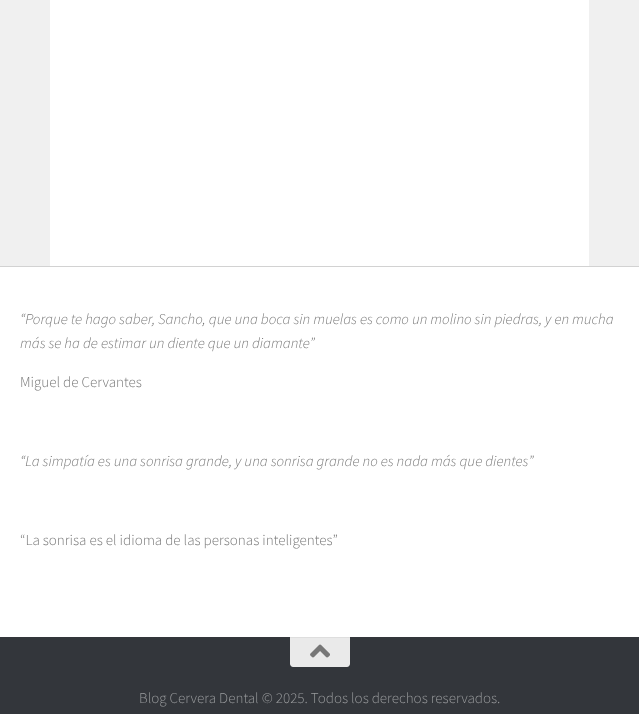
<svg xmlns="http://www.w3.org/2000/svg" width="639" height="714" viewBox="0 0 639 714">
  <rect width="100%" height="100%" fill="#eaeaea"/>
  <path d="M0 -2h639v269H0z" fill="#0000001a" filter="blur(0.5px)"/>
  <path d="M50 0h539v266H50z" fill="#fff"/>
  <path d="M0 0h50v266H0z" fill="#f0f0f0"/>
  <path d="M589 0h50v266H589z" fill="#f0f0f0"/>
  <path d="M0 267h639v370H0z" fill="#fff"/>
  <path d="M0 637h639v77H0z" fill="#33363b"/>
  <path d="M290 637H350V664C350 665.5 348.5 667 347 667H293C291.5 667 290 665.5 290 664Z" fill="#eaeaea"/>
  <path d="M290 637h60v1H290z" fill="#dedede"/>
  <image x="310" y="644" width="20" height="14" href="img/1.png"/>
  <g font-family="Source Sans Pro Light" font-size="15" font-weight="300" font-style="italic" fill="#777">
    <text x="20" y="324">“Porque te hago saber, Sancho, que una boca sin muelas es como un molino sin piedras, y en mucha</text>
    <text x="20" y="348">más se ha de estimar un diente que un diamante”</text>
  </g>
  <text x="20" y="387" font-family="Source Sans Pro Light" font-size="15" font-weight="300" fill="#777">Miguel de Cervantes</text>
  <text x="20" y="466" font-family="Source Sans Pro Light" font-size="15" font-weight="300" font-style="italic" fill="#777">“La simpatía es una sonrisa grande, y una sonrisa grande no es nada más que dientes”</text>
  <text x="20" y="545" font-family="Source Sans Pro Light" font-size="15" font-weight="300" fill="#777">“La sonrisa es el idioma de las personas inteligentes”</text>
  <text x="139" y="703" font-family="Source Sans Pro Light" font-size="15" font-weight="300" fill="#999b9d">Blog Cervera Dental © 2025. Todos los derechos reservados.</text>
</svg>
